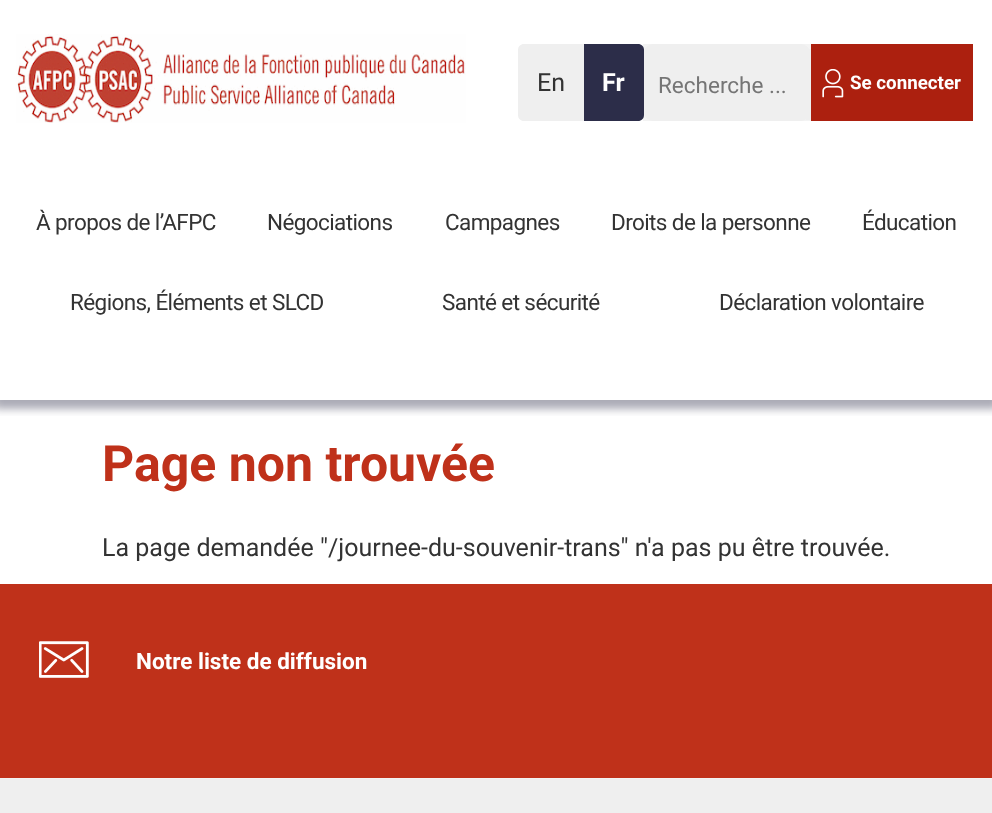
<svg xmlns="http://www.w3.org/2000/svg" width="992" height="813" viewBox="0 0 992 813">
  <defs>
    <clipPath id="clip1"><path d="M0 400h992v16H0z"/></clipPath>
  </defs>
  <rect width="100%" height="100%" fill="#fff"/>
  <g clip-path="url(#clip1)">
    <path d="M-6 -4h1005v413H-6z" fill="#2c2d4966" filter="blur(4px)"/>
  </g>
  <image x="16" y="70" width="1" height="9" href="img/1.png"/>
  <image x="16" y="34" width="450" height="89" href="img/2.png"/>
  <path d="M524 44H584V121H524C520.5 121 518 118.5 518 115V50C518 46.5 520.5 44 524 44Z" fill="#efefef"/>
  <path d="M643 44h168v77H643z" fill="#f3f3f3"/>
  <rect x="643" y="44" width="168" height="77" rx="11" fill="#efefef"/>
  <path d="M584 44H638C641.5 44 644 46.5 644 50V115C644 118.5 641.5 121 638 121H584Z" fill="#2c2d49"/>
  <path d="M806 49h5v71H806z" fill="#efefef"/>
  <path d="M811 44h162v77H811z" fill="#ac200f"/>
  <image x="822" y="69" width="22" height="29" href="img/3.png"/>
  <path d="M0 778h992v1H0z" fill="#f3f3f3"/>
  <path d="M0 584h992v194H0z" fill="#bf311a"/>
  <image x="39" y="641" width="50" height="37" href="img/4.png"/>
  <path d="M0 779h992v34H0z" fill="#efefef"/>
  <text x="537" y="91" font-family="Roboto" font-size="25" fill="#333">En</text>
  <text x="602" y="91" font-family="Roboto" font-size="25" font-weight="bold" fill="#fff">Fr</text>
  <text x="658" y="93" font-family="Roboto" font-size="22.5" fill="#757575">Recherche ...</text>
  <text x="850" y="89" font-family="Roboto" font-size="18.75" font-weight="bold" fill="#fff">Se connecter</text>
  <g font-family="Roboto" font-size="22.5" letter-spacing="-0.6" fill="#333">
    <text x="36" y="230">À propos de l’AFPC</text>
    <text x="267" y="230">Négociations</text>
    <text x="445" y="230">Campagnes</text>
    <text x="611" y="230">Droits de la personne</text>
    <text x="862" y="230">Éducation</text>
    <text x="70" y="310">Régions, Éléments et SLCD</text>
    <text x="442" y="310">Santé et sécurité</text>
    <text x="719" y="310">Déclaration volontaire</text>
  </g>
  <text x="102" y="481" font-family="Roboto" font-size="50" font-weight="bold" fill="#bf311a">Page non trouvée</text>
  <text x="102" y="556" font-family="Roboto" font-size="25" fill="#333">La page demandée "/journee-du-souvenir-trans" n'a pas pu être trouvée.</text>
  <text x="136" y="669" font-family="Roboto" font-size="22.5" font-weight="bold" fill="#fff">Notre liste de diffusion</text>
</svg>
